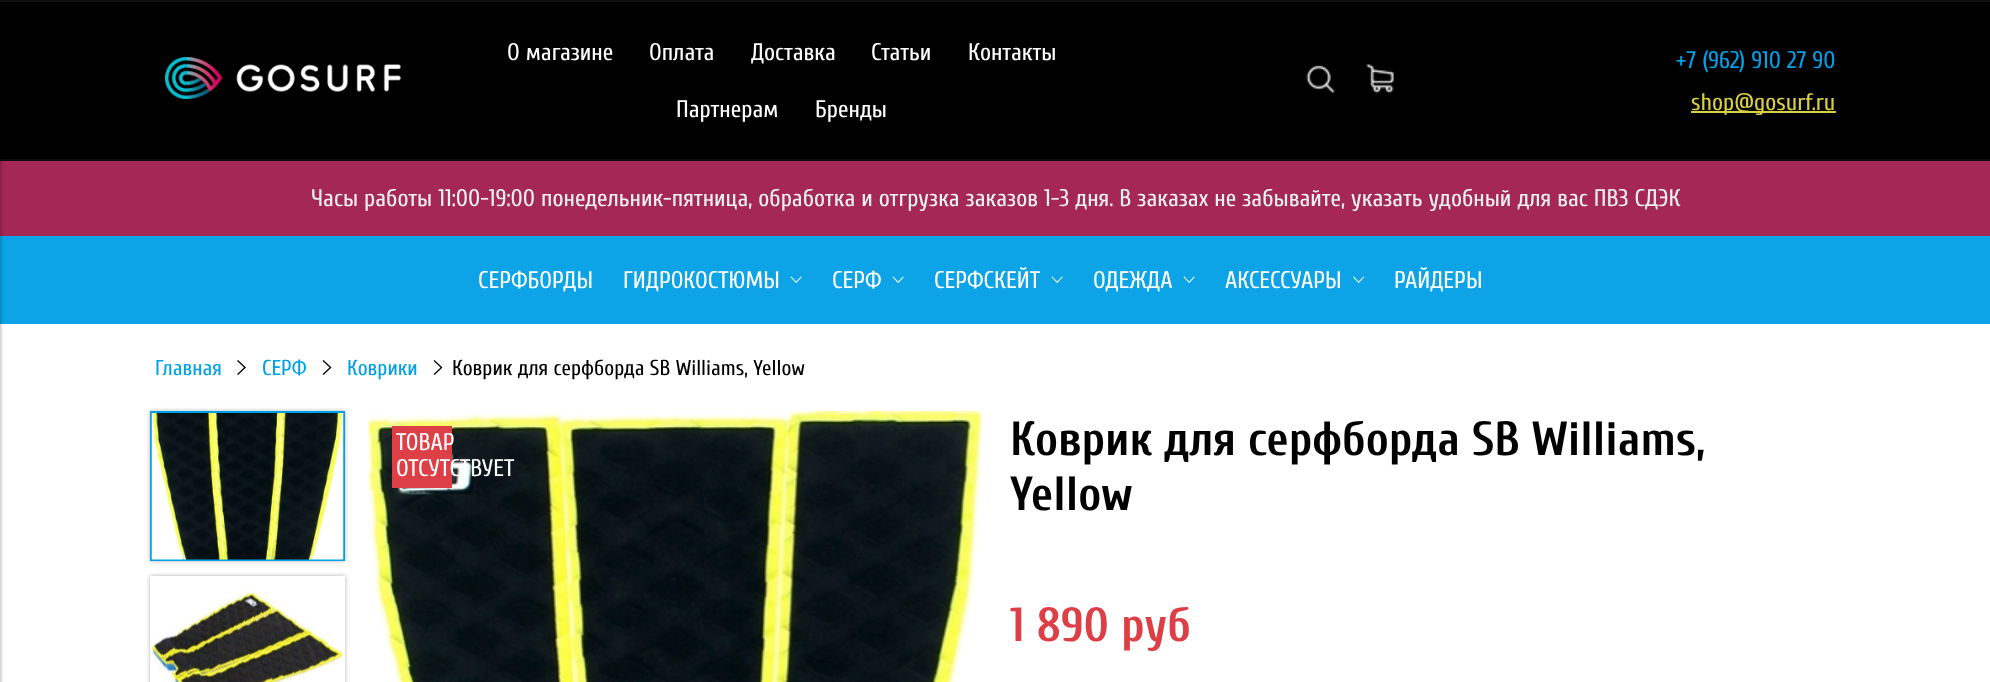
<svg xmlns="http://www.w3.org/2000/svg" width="1990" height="682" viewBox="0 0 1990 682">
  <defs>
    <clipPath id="clip1"><path d="M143 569H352V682H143ZM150 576H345V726H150Z" clip-rule="evenodd"/></clipPath>
  </defs>
  <rect width="100%" height="100%" fill="#fff"/>
  <path d="M0 2h1990v157H0z" fill="#000"/>
  <path d="M0 159h1990v2H0z" fill="#0d0d0d"/>
  <path d="M0 161h1990v75H0z" fill="#a52754"/>
  <path d="M0 236h1990v88H0z" fill="#0ca4e6"/>
  <path d="M-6 80h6v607H-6z" fill="#00000066" filter="blur(2px)"/>
  <path d="M0 0h1990v2H0z" fill="#0d0d0d"/>
  <image x="165" y="57" width="236" height="42" href="img/1.png"/>
  <image x="1306" y="65" width="29" height="28" href="img/2.png"/>
  <image x="1366" y="64" width="28" height="30" href="img/3.png"/>
  <path d="M1691 111h145v2H1691z" fill="#d9ce43"/>
  <image x="790" y="276" width="12" height="7" href="img/4.png"/>
  <image x="892" y="276" width="12" height="7" href="img/4.png"/>
  <image x="1051" y="276" width="12" height="7" href="img/4.png"/>
  <image x="1183" y="276" width="12" height="7" href="img/4.png"/>
  <image x="1353" y="276" width="12" height="7" href="img/5.png"/>
  <image x="237" y="360" width="9" height="15" href="img/6.png"/>
  <image x="322" y="360" width="10" height="15" href="img/7.png"/>
  <image x="433" y="360" width="10" height="15" href="img/7.png"/>
  <path d="M150 411h195v150H150z" fill="#0000004d" filter="blur(2px)"/>
  <path d="M151 412h193v148H151z" fill="none" stroke="#00a1e6" stroke-width="2"/>
  <image x="151" y="413" width="193" height="147" href="img/8.png"/>
  <g clip-path="url(#clip1)">
    <path d="M150 576h195v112H150z" fill="#0000004d" filter="blur(2px)"/>
  </g>
  <image x="150" y="586" width="195" height="96" href="img/9.png"/>
  <image x="369" y="411" width="612" height="271" href="img/10.png"/>
  <path d="M392 426h60v62H392z" fill="#dd3f46"/>
  <g font-family="Cuprum" font-size="24" fill="#fff">
    <text x="507" y="60">О магазине</text>
    <text x="649" y="60">Оплата</text>
    <text x="751" y="60">Доставка</text>
    <text x="871" y="60">Статьи</text>
    <text x="968" y="60">Контакты</text>
    <text x="676" y="117">Партнерам</text>
    <text x="815" y="117">Бренды</text>
  </g>
  <text x="1676" y="68" font-family="Cuprum" font-size="24" fill="#00a1e6">+7 (962) 910 27 90</text>
  <text x="1691" y="110" font-family="Cuprum" font-size="24" fill="#d9ce43">shop@gosurf.ru</text>
  <text x="311" y="206" font-family="Cuprum" font-size="24" fill="#ecf0f1">Часы работы 11:00-19:00 понедельник-пятница, обработка и отгрузка заказов 1-3 дня. В заказах не забывайте, указать удобный для вас ПВЗ СДЭК</text>
  <g font-family="Cuprum" font-size="24" fill="#fff">
    <text x="478" y="288">СЕРФБОРДЫ</text>
    <text x="623" y="288">ГИДРОКОСТЮМЫ</text>
    <text x="832" y="288">СЕРФ</text>
    <text x="934" y="288">СЕРФСКЕЙТ</text>
    <text x="1093" y="288">ОДЕЖДА</text>
    <text x="1225" y="288">АКСЕССУАРЫ</text>
    <text x="1394" y="288">РАЙДЕРЫ</text>
  </g>
  <g font-family="Cuprum" font-size="21.6" fill="#00a1e6">
    <text x="155" y="375">Главная</text>
    <text x="262" y="375">СЕРФ</text>
    <text x="347" y="375">Коврики</text>
  </g>
  <text x="452" y="375" font-family="Cuprum" font-size="21.6" fill="#000">Коврик для серфборда SB Williams, Yellow</text>
  <g font-family="Cuprum" font-size="24" fill="#fff">
    <text x="396" y="450">ТОВАР</text>
    <text x="396" y="476">ОТСУТСТВУЕТ</text>
  </g>
  <g font-family="Cuprum" font-size="48" font-weight="bold" fill="#000">
    <text x="1010" y="455">Коврик для серфборда SB Williams,</text>
    <text x="1010" y="510">Yellow</text>
  </g>
  <text x="1010" y="641" font-family="Cuprum" font-size="48" font-weight="bold" fill="#dd3f46">1 890 руб</text>
</svg>
